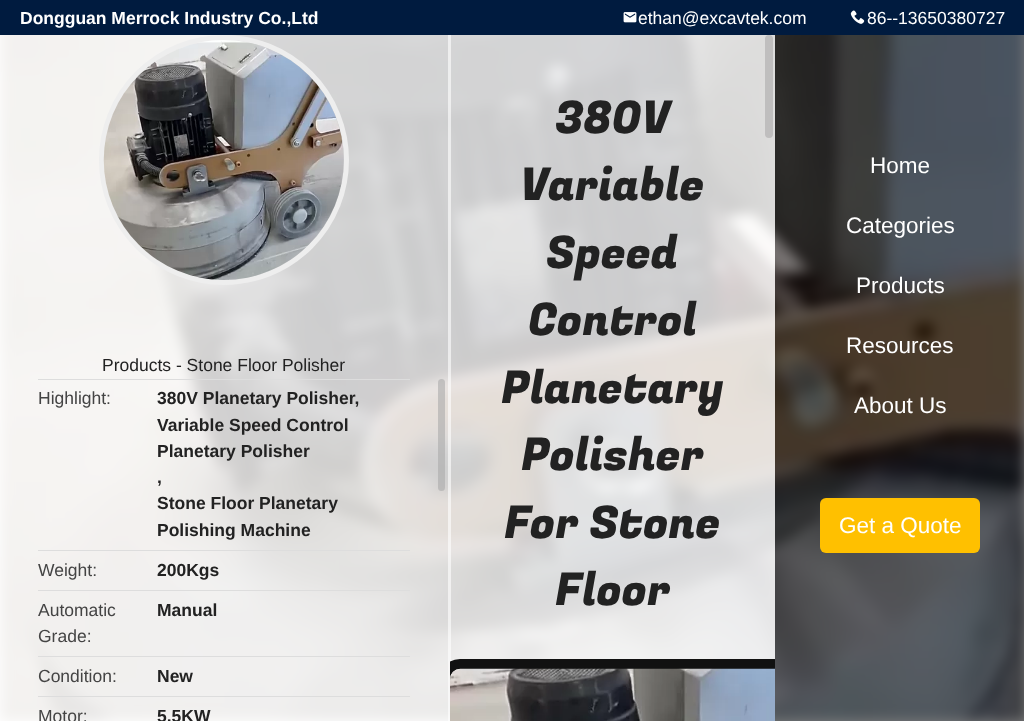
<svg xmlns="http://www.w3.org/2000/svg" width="1024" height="721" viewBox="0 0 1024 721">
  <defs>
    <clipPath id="clip1"><path d="M450 35h325v686H450z"/></clipPath>
  </defs>
  <rect width="100%" height="100%" fill="#fff"/>
  <path d="M0 0h1024v35H0z" fill="#001b3f"/>
  <image x="623" y="12" width="14" height="11" href="img/1.png"/>
  <image x="850" y="10" width="15" height="14" href="img/2.png"/>
  <image x="0" y="35" width="1024" height="686" href="img/3.png"/>
  <path d="M0 35h450v686H0z" fill="#ffffffcc"/>
  <path d="M448 35h3v686H448z" fill="#ffffff99"/>
  <circle cx="224" cy="160" r="122.5" fill="none" stroke="#eee" stroke-width="5"/>
  <image x="103" y="40" width="241" height="240" href="img/4.png"/>
  <path d="M38 379h372v1H38z" fill="#ddd"/>
  <path d="M38 550h372v1H38z" fill="#ddd"/>
  <path d="M38 590h372v1H38z" fill="#ddd"/>
  <path d="M38 656h372v1H38z" fill="#ddd"/>
  <path d="M38 696h372v1H38z" fill="#ddd"/>
  <rect x="438" y="379" width="7" height="112" rx="3.5" fill="#aaaaaa99"/>
  <path d="M450 35h325v644H450z" fill="#ffffffcc"/>
  <rect x="765" y="35" width="8" height="103" rx="4" fill="#bfbebe"/>
  <path d="M775 35h249v686H775z" fill="#00000080"/>
  <g clip-path="url(#clip1)">
    <rect x="445" y="664" width="440" height="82" rx="15" fill="none" stroke="#111" stroke-width="10"/>
  </g>
  <image x="450" y="668" width="325" height="53" href="img/5.png"/>
  <rect x="820" y="498" width="160" height="55" rx="6" fill="#ffc000"/>
  <text x="20" y="24" font-family="Liberation Sans" font-size="17.5" font-weight="bold" fill="#fff">Dongguan Merrock Industry Co.,Ltd</text>
  <g font-family="Liberation Sans" font-size="17.5" fill="#fff">
    <text x="638" y="24">ethan@excavtek.com</text>
    <text x="867" y="24">86--13650380727</text>
  </g>
  <text x="102" y="371" font-family="Liberation Sans" font-size="17.5" fill="#222">Products - Stone Floor Polisher</text>
  <text x="38" y="404" font-family="Liberation Sans" font-size="17.5" fill="#444">Highlight:</text>
  <g font-family="Liberation Sans" font-size="17.5" font-weight="bold" fill="#222">
    <text x="157" y="404">380V Planetary Polisher,</text>
    <text x="157" y="431">Variable Speed Control</text>
    <text x="157" y="457">Planetary Polisher</text>
    <text x="157" y="483">,</text>
    <text x="157" y="509">Stone Floor Planetary</text>
    <text x="157" y="536">Polishing Machine</text>
  </g>
  <text x="38" y="576" font-family="Liberation Sans" font-size="17.5" fill="#444">Weight:</text>
  <text x="157" y="576" font-family="Liberation Sans" font-size="17.5" font-weight="bold" fill="#222">200Kgs</text>
  <g font-family="Liberation Sans" font-size="17.5" fill="#444">
    <text x="38" y="616">Automatic</text>
    <text x="38" y="642">Grade:</text>
  </g>
  <text x="157" y="616" font-family="Liberation Sans" font-size="17.5" font-weight="bold" fill="#222">Manual</text>
  <text x="38" y="682" font-family="Liberation Sans" font-size="17.5" fill="#444">Condition:</text>
  <text x="157" y="682" font-family="Liberation Sans" font-size="17.5" font-weight="bold" fill="#222">New</text>
  <text x="38" y="722" font-family="Liberation Sans" font-size="17.5" fill="#444">Motor:</text>
  <text x="157" y="722" font-family="Liberation Sans" font-size="17.5" font-weight="bold" fill="#222">5.5KW</text>
  <g font-family="Fugaz One" font-size="45" fill="#222">
    <text x="555" y="133">380V</text>
    <text x="520" y="200">Variable</text>
    <text x="546" y="268">Speed</text>
    <text x="528" y="335">Control</text>
    <text x="501" y="403">Planetary</text>
    <text x="521" y="470">Polisher</text>
    <text x="504" y="538">For Stone</text>
    <text x="555" y="605">Floor</text>
  </g>
  <g font-family="Liberation Sans" font-size="22.5" fill="#fff">
    <text x="870" y="173">Home</text>
    <text x="846" y="233">Categories</text>
    <text x="856" y="293">Products</text>
    <text x="846" y="353">Resources</text>
    <text x="854" y="413">About Us</text>
    <text x="839" y="533">Get a Quote</text>
  </g>
</svg>
